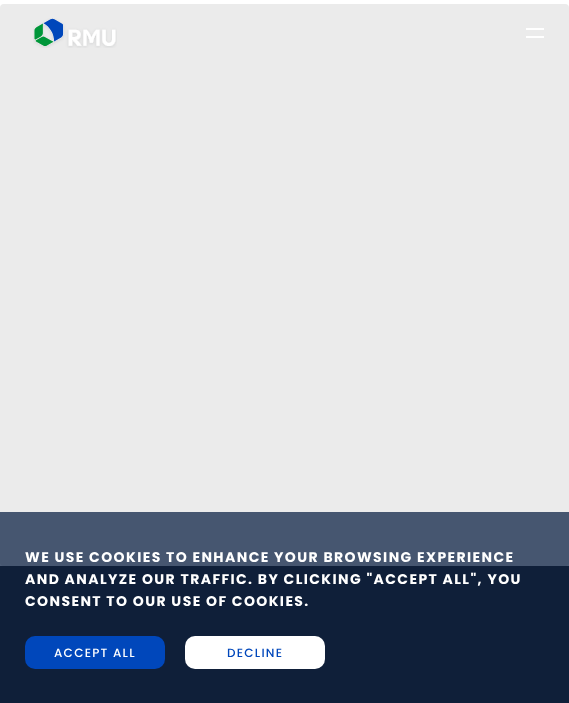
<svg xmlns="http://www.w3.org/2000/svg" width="569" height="703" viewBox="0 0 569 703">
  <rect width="100%" height="100%" fill="#fff"/>
  <rect y="4" width="569" height="562" rx="4" fill="#ebebeb"/>
  <path d="M0 566h569v137H0z" fill="#333"/>
  <image x="33" y="18" width="84" height="30" href="img/1.png"/>
  <path d="M526 28h18v2H526z" fill="#fff"/>
  <path d="M526 36h18v2H526z" fill="#fff"/>
  <path d="M0 512h569v191H0z" fill="#00173cb3"/>
  <rect x="25" y="636" width="140" height="33" rx="10" fill="#0047bb"/>
  <rect x="185" y="636" width="140" height="33" rx="10" fill="#fff"/>
  <g font-family="Poppins" font-size="14" font-weight="bold" letter-spacing="1.4" fill="#fff">
    <text x="25" y="562">WE USE COOKIES TO ENHANCE YOUR BROWSING EXPERIENCE</text>
    <text x="25" y="584">AND ANALYZE OUR TRAFFIC. BY CLICKING "ACCEPT ALL", YOU</text>
    <text x="25" y="606">CONSENT TO OUR USE OF COOKIES.</text>
  </g>
  <text x="54" y="657" font-family="Poppins" font-size="12" font-weight="500" letter-spacing="1.25" fill="#fff">ACCEPT ALL</text>
  <text x="227" y="657" font-family="Poppins" font-size="12" font-weight="500" letter-spacing="1.25" fill="#0047bb">DECLINE</text>
</svg>
